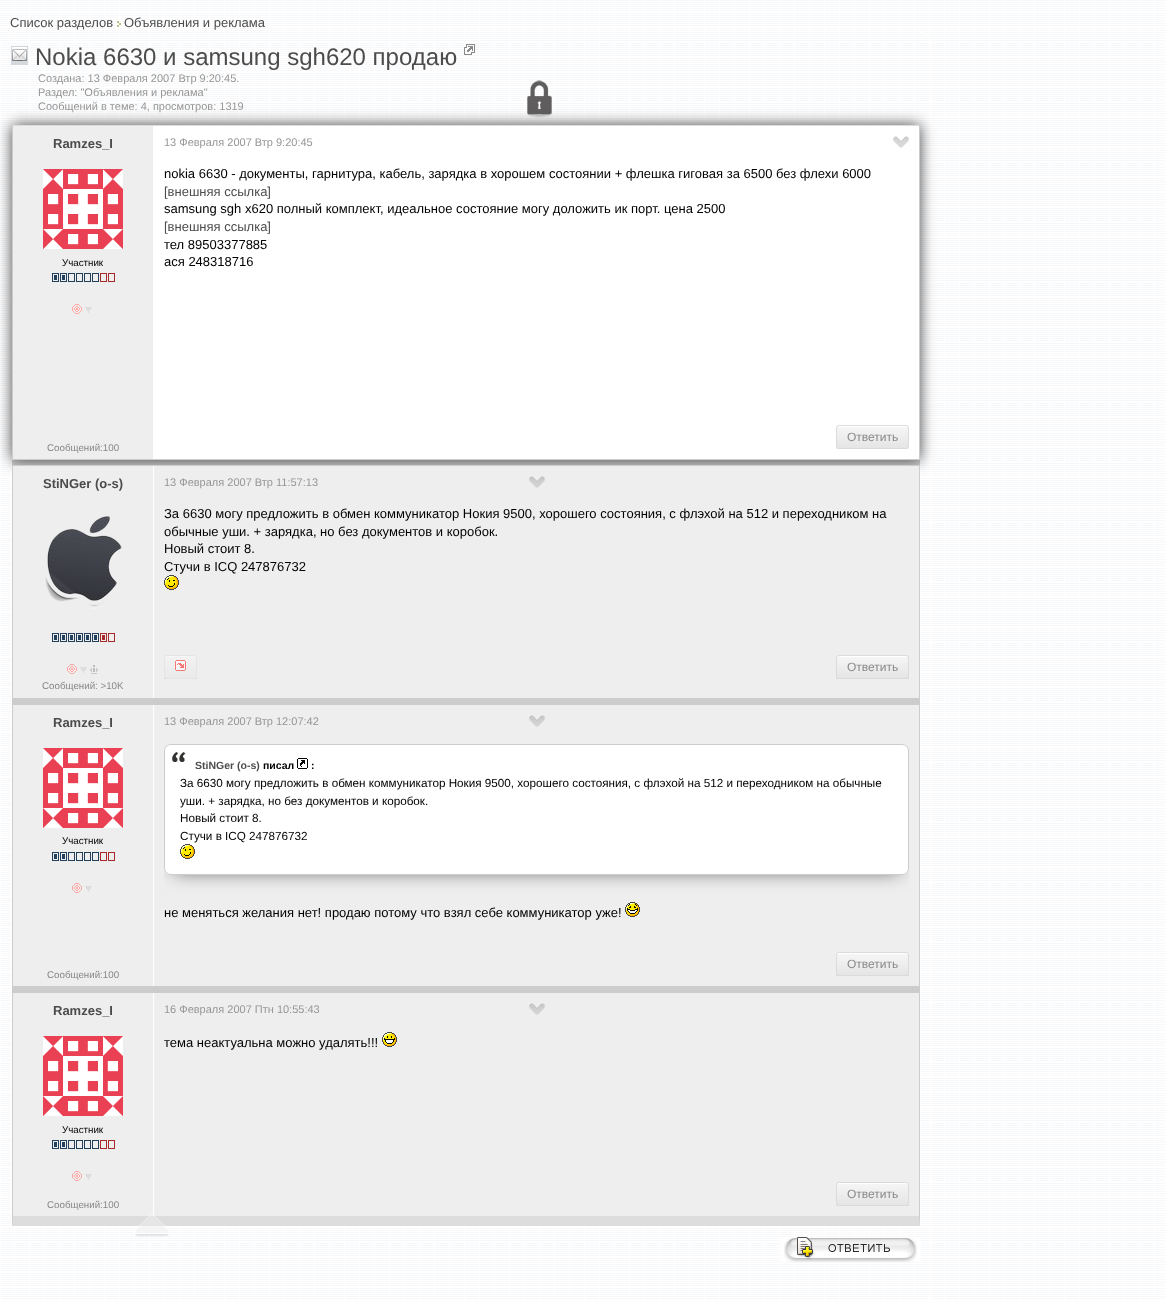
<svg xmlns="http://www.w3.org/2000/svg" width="1165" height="1299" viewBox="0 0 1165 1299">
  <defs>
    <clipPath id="clip1"><path d="M164 425h745v24H164z"/></clipPath>
    <clipPath id="clip2"><rect x="836" y="425" width="73" height="24" rx="3"/></clipPath>
    <linearGradient id="g1" gradientUnits="userSpaceOnUse" x1="837" y1="426" x2="837" y2="448"><stop offset="0" stop-color="#f6f6f6"/><stop offset="1" stop-color="#e5e5e5"/></linearGradient>
    <clipPath id="clip3"><path d="M164 655h745v24H164z"/></clipPath>
    <clipPath id="clip4"><rect x="164" y="655" width="33" height="24" rx="3"/></clipPath>
    <linearGradient id="g2" gradientUnits="userSpaceOnUse" x1="165" y1="656" x2="165" y2="678"><stop offset="0" stop-color="#f2f2f2"/><stop offset="1" stop-color="#eaeaea"/></linearGradient>
    <clipPath id="clip5"><rect x="836" y="655" width="73" height="24" rx="3"/></clipPath>
    <linearGradient id="g3" gradientUnits="userSpaceOnUse" x1="837" y1="656" x2="837" y2="678"><stop offset="0" stop-color="#f6f6f6"/><stop offset="1" stop-color="#e5e5e5"/></linearGradient>
    <clipPath id="clip6"><path d="M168 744H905C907 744 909 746 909 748V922H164V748C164 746 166 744 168 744Z"/></clipPath>
    <clipPath id="clip7"><path d="M164 952h745v24H164z"/></clipPath>
    <clipPath id="clip8"><rect x="836" y="952" width="73" height="24" rx="3"/></clipPath>
    <linearGradient id="g4" gradientUnits="userSpaceOnUse" x1="837" y1="953" x2="837" y2="975"><stop offset="0" stop-color="#f6f6f6"/><stop offset="1" stop-color="#e5e5e5"/></linearGradient>
    <clipPath id="clip9"><path d="M164 1182h745v24H164z"/></clipPath>
    <clipPath id="clip10"><rect x="836" y="1182" width="73" height="24" rx="3"/></clipPath>
    <linearGradient id="g5" gradientUnits="userSpaceOnUse" x1="837" y1="1183" x2="837" y2="1205"><stop offset="0" stop-color="#f6f6f6"/><stop offset="1" stop-color="#e5e5e5"/></linearGradient>
  </defs>
  <rect width="100%" height="100%" fill="#fff"/>
  <image x="0" y="0" width="1165" height="1299" href="img/1.png"/>
  <image x="117" y="21" width="4" height="6" href="img/2.png"/>
  <rect x="0.5" y="31.5" width="931" height="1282" rx="13.5" fill="none" stroke="#fff"/>
  <image x="11" y="46" width="17" height="19" href="img/3.png"/>
  <image x="464" y="44" width="11" height="11" href="img/4.png"/>
  <image x="527" y="80" width="25" height="38" href="img/5.png"/>
  <path d="M12 460h908v766H12z" fill="#ccc"/>
  <path d="M11.5 124.5h909v1102H11.5z" fill="none" stroke="#fff"/>
  <path d="M12 125h908v335H12z" fill="#444" filter="blur(7.5px)"/>
  <path d="M153 126h766v333H153z" fill="#fff"/>
  <path d="M12 125h908v1H12z" fill="#ddd"/>
  <path d="M919 125h1v335H919z" fill="#ccc"/>
  <path d="M12 459h908v1H12z" fill="#ccc"/>
  <path d="M12 125h1v335H12z" fill="#ccc"/>
  <path d="M13 126h140v333H13z" fill="#eee"/>
  <image x="43" y="169" width="80" height="80" href="img/6.png"/>
  <image x="52" y="273" width="63" height="9" href="img/7.png"/>
  <image x="72" y="304" width="10" height="10" href="img/8.png"/>
  <image x="85" y="307" width="7" height="6" href="img/9.png"/>
  <image x="893" y="136" width="16" height="12" href="img/10.png"/>
  <g clip-path="url(#clip1)">
    <path d="M836 446C836 453 846 450 850 450H895C899 450 909 453 909 446C909 448 908 449 906 449H839C837 449 836 448 836 446Z" fill="#b3b3b3"/>
  </g>
  <g clip-path="url(#clip2)">
    <path d="M836 426h73v22H836z" fill="url(#g1)"/>
  </g>
  <path d="M839 427H906C907 427 908 428 908 429C908 423 898 426 895 426H850C847 426 837 423 837 429C837 428 838 427 839 427Z" fill="#fff"/>
  <rect x="836.5" y="425.5" width="72" height="23" rx="2.5" fill="none" stroke="#dbdbdb"/>
  <path d="M12.5 465.5h907v233H12.5z" fill="#eee" stroke="#ccc"/>
  <path d="M153 466h1v232H153z" fill="#fff"/>
  <image x="33" y="509" width="100" height="100" href="img/11.png"/>
  <image x="52" y="633" width="63" height="9" href="img/12.png"/>
  <image x="67" y="664" width="10" height="10" href="img/8.png"/>
  <image x="80" y="667" width="7" height="6" href="img/9.png"/>
  <image x="90" y="665" width="8" height="9" href="img/13.png"/>
  <image x="529" y="476" width="16" height="12" href="img/14.png"/>
  <image x="164" y="575" width="15" height="15" href="img/15.png"/>
  <g clip-path="url(#clip3)">
    <path d="M164 676C164 681 167.5 680 171.5 680H189.5C193.5 680 197 681 197 676C197 677.5 195.5 679 194 679H167C165.5 679 164 677.5 164 676Z" fill="#cacaca"/>
  </g>
  <g clip-path="url(#clip4)">
    <path d="M164 656h33v22H164z" fill="url(#g2)"/>
  </g>
  <path d="M167 657C170.5 657 194.5 656 196 658C196 657 195 656 194 656H167C166 656 165 657 165 658C165 657.5 166 657 167 657ZM165 676.5V674Z" fill="#f7f7f7" fill-rule="evenodd"/>
  <rect x="164.5" y="655.5" width="32" height="23" rx="2.5" fill="none" stroke="#e5e5e5"/>
  <image x="175" y="660" width="11" height="11" href="img/16.png"/>
  <g clip-path="url(#clip3)">
    <path d="M836 676C836 683 846 680 850 680H895C899 680 909 683 909 676C909 678 908 679 906 679H839C837 679 836 678 836 676Z" fill="#a7a7a7"/>
  </g>
  <g clip-path="url(#clip5)">
    <path d="M836 656h73v22H836z" fill="url(#g3)"/>
  </g>
  <path d="M839 657H906C907 657 908 658 908 659C908 653 898 656 895 656H850C847 656 837 653 837 659C837 658 838 657 839 657Z" fill="#fff"/>
  <rect x="836.5" y="655.5" width="72" height="23" rx="2.5" fill="none" stroke="#dbdbdb"/>
  <path d="M13 705h906v281H13z" fill="#eee"/>
  <path d="M153 705h1v281H153z" fill="#fff"/>
  <image x="43" y="748" width="80" height="80" href="img/6.png"/>
  <image x="52" y="852" width="63" height="9" href="img/7.png"/>
  <image x="72" y="883" width="10" height="10" href="img/8.png"/>
  <image x="85" y="886" width="7" height="6" href="img/9.png"/>
  <image x="529" y="715" width="16" height="12" href="img/14.png"/>
  <g clip-path="url(#clip6)">
    <path d="M174 759h725v111H174z" fill="#444" filter="blur(10px)"/>
  </g>
  <rect x="164" y="744" width="745" height="131" rx="7" fill="#fff"/>
  <image x="172" y="752" width="14" height="10" href="img/17.png"/>
  <rect x="164.5" y="744.5" width="744" height="130" rx="6.5" fill="none" stroke="#ccc"/>
  <image x="297" y="758" width="11" height="11" href="img/18.png"/>
  <image x="180" y="844" width="15" height="15" href="img/19.png"/>
  <image x="625" y="902" width="15" height="15" href="img/20.png"/>
  <g clip-path="url(#clip7)">
    <path d="M836 973C836 980 846 977 850 977H895C899 977 909 980 909 973C909 975 908 976 906 976H839C837 976 836 975 836 973Z" fill="#a7a7a7"/>
  </g>
  <g clip-path="url(#clip8)">
    <path d="M836 953h73v22H836z" fill="url(#g4)"/>
  </g>
  <path d="M839 954H906C907 954 908 955 908 956C908 950 898 953 895 953H850C847 953 837 950 837 956C837 955 838 954 839 954Z" fill="#fff"/>
  <rect x="836.5" y="952.5" width="72" height="23" rx="2.5" fill="none" stroke="#dbdbdb"/>
  <path d="M13 993h906v223H13z" fill="#eee"/>
  <path d="M920 1226H12L13 1216H919Z" fill="#ddd"/>
  <path d="M12 1226V992L13 993V1216Z" fill="#ccc"/>
  <path d="M153 993h1v223H153z" fill="#fff"/>
  <image x="43" y="1036" width="80" height="80" href="img/6.png"/>
  <image x="52" y="1140" width="63" height="9" href="img/7.png"/>
  <image x="72" y="1171" width="10" height="10" href="img/8.png"/>
  <image x="85" y="1174" width="7" height="6" href="img/9.png"/>
  <image x="529" y="1003" width="16" height="12" href="img/14.png"/>
  <image x="382" y="1032" width="15" height="15" href="img/21.png"/>
  <g clip-path="url(#clip9)">
    <path d="M836 1203C836 1210 846 1207 850 1207H895C899 1207 909 1210 909 1203C909 1205 908 1206 906 1206H839C837 1206 836 1205 836 1203Z" fill="#a7a7a7"/>
  </g>
  <g clip-path="url(#clip10)">
    <path d="M836 1183h73v22H836z" fill="url(#g5)"/>
  </g>
  <path d="M839 1184H906C907 1184 908 1185 908 1186C908 1180 898 1183 895 1183H850C847 1183 837 1180 837 1186C837 1185 838 1184 839 1184Z" fill="#fff"/>
  <rect x="836.5" y="1182.5" width="72" height="23" rx="2.5" fill="none" stroke="#dbdbdb"/>
  <image x="135" y="1213" width="34" height="24" href="img/22.png"/>
  <image x="781" y="1237" width="140" height="25" href="img/23.png"/>
  <g font-family="Liberation Sans" font-size="13" fill="#4c4c4c">
    <text x="10" y="27">Список разделов</text>
    <text x="124" y="27">Объявления и реклама</text>
  </g>
  <text x="35" y="65" font-family="Liberation Sans" font-size="24" fill="#4c4c4c">Nokia 6630 и samsung sgh620 продаю</text>
  <g font-family="Liberation Sans" font-size="11" fill="#969696">
    <text x="38" y="82">Создана: 13 Февраля 2007 Втр 9:20:45.</text>
    <text x="38" y="96">Раздел: "Объявления и реклама"</text>
    <text x="38" y="110">Сообщений в теме: 4, просмотров: 1319</text>
  </g>
  <text x="53" y="148" font-family="Liberation Sans" font-size="13" font-weight="bold" fill="#4c4c4c">Ramzes_I</text>
  <text x="62" y="266" font-family="Liberation Sans" font-size="9.75" fill="#000">Участник</text>
  <text x="47" y="451" font-family="Liberation Sans" font-size="9.75" fill="#888">Сообщений:100</text>
  <text x="164" y="146" font-family="Liberation Sans" font-size="11" fill="#969696">13 Февраля 2007 Втр 9:20:45</text>
  <text x="164" y="178" font-family="Liberation Sans" font-size="13" fill="#000">nokia 6630 - документы, гарнитура, кабель, зарядка в хорошем состоянии + флешка гиговая за 6500 без флехи 6000</text>
  <text x="164" y="196" font-family="Liberation Sans" font-size="13" fill="#4c4c4c">[внешняя ссылка]</text>
  <text x="164" y="213" font-family="Liberation Sans" font-size="13" fill="#000">samsung sgh x620 полный комплект, идеальное состояние могу доложить ик порт. цена 2500</text>
  <text x="164" y="231" font-family="Liberation Sans" font-size="13" fill="#4c4c4c">[внешняя ссылка]</text>
  <g font-family="Liberation Sans" font-size="13" fill="#000">
    <text x="164" y="249">тел 89503377885</text>
    <text x="164" y="266">ася 248318716</text>
  </g>
  <text x="847" y="441" font-family="Liberation Sans" font-size="12" fill="#888">Ответить</text>
  <text x="43" y="488" font-family="Liberation Sans" font-size="13" font-weight="bold" fill="#4c4c4c">StiNGer (o-s)</text>
  <text x="42" y="689" font-family="Liberation Sans" font-size="9.75" fill="#888">Сообщений: &gt;10K</text>
  <text x="164" y="486" font-family="Liberation Sans" font-size="11" fill="#969696">13 Февраля 2007 Втр 11:57:13</text>
  <g font-family="Liberation Sans" font-size="13" fill="#000">
    <text x="164" y="518">За 6630 могу предложить в обмен коммуникатор Нокия 9500, хорошего состояния, с флэхой на 512 и переходником на</text>
    <text x="164" y="536">обычные уши. + зарядка, но без документов и коробок.</text>
    <text x="164" y="553">Новый стоит 8.</text>
    <text x="164" y="571">Стучи в ICQ 247876732</text>
  </g>
  <text x="847" y="671" font-family="Liberation Sans" font-size="12" fill="#888">Ответить</text>
  <text x="53" y="727" font-family="Liberation Sans" font-size="13" font-weight="bold" fill="#4c4c4c">Ramzes_I</text>
  <text x="62" y="844" font-family="Liberation Sans" font-size="9.75" fill="#000">Участник</text>
  <text x="47" y="978" font-family="Liberation Sans" font-size="9.75" fill="#888">Сообщений:100</text>
  <text x="164" y="725" font-family="Liberation Sans" font-size="11" fill="#969696">13 Февраля 2007 Втр 12:07:42</text>
  <text x="195" y="769" font-family="Liberation Sans" font-size="10.5" font-weight="bold" fill="#4c4c4c">StiNGer (o-s)</text>
  <g font-family="Liberation Sans" font-size="10.5" font-weight="bold" fill="#000">
    <text x="263" y="769">писал</text>
    <text x="311" y="769">:</text>
  </g>
  <g font-family="Liberation Sans" font-size="11.7" fill="#000">
    <text x="180" y="787">За 6630 могу предложить в обмен коммуникатор Нокия 9500, хорошего состояния, с флэхой на 512 и переходником на обычные</text>
    <text x="180" y="805">уши. + зарядка, но без документов и коробок.</text>
    <text x="180" y="822">Новый стоит 8.</text>
    <text x="180" y="840">Стучи в ICQ 247876732</text>
  </g>
  <text x="164" y="917" font-family="Liberation Sans" font-size="13" fill="#000">не меняться желания нет! продаю потому что взял себе коммуникатор уже!</text>
  <text x="847" y="968" font-family="Liberation Sans" font-size="12" fill="#888">Ответить</text>
  <text x="53" y="1015" font-family="Liberation Sans" font-size="13" font-weight="bold" fill="#4c4c4c">Ramzes_I</text>
  <text x="62" y="1133" font-family="Liberation Sans" font-size="9.75" fill="#000">Участник</text>
  <text x="47" y="1208" font-family="Liberation Sans" font-size="9.75" fill="#888">Сообщений:100</text>
  <text x="164" y="1013" font-family="Liberation Sans" font-size="11" fill="#969696">16 Февраля 2007 Птн 10:55:43</text>
  <text x="164" y="1047" font-family="Liberation Sans" font-size="13" fill="#000">тема неактуальна можно удалять!!!</text>
  <text x="847" y="1198" font-family="Liberation Sans" font-size="12" fill="#888">Ответить</text>
</svg>
